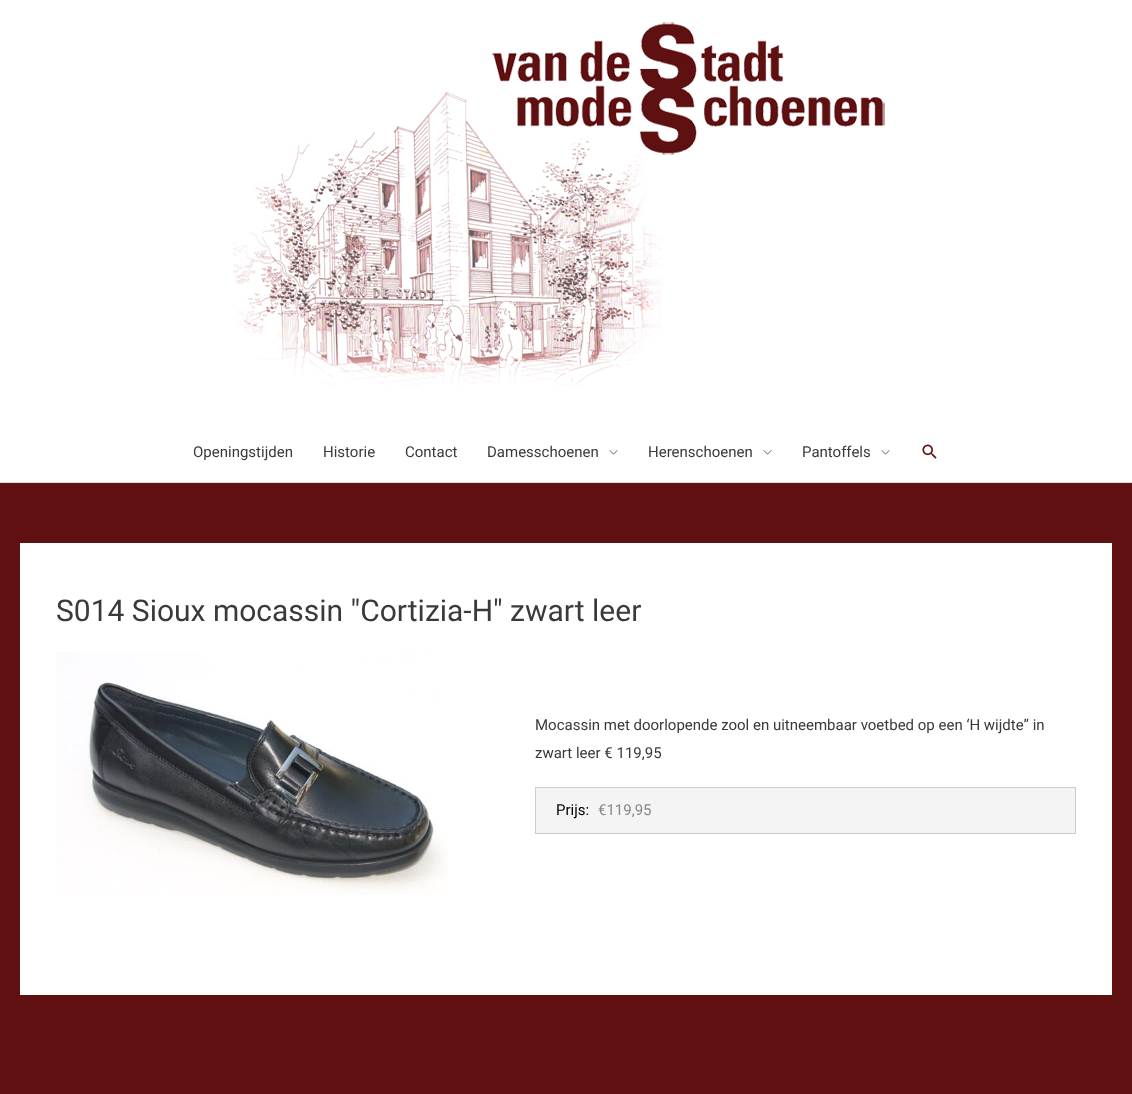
<svg xmlns="http://www.w3.org/2000/svg" width="1132" height="1094" viewBox="0 0 1132 1094">
  <rect width="100%" height="100%" fill="#601010"/>
  <path d="M0 0h1132v482H0z" fill="#fff"/>
  <path d="M0 482h1132v1H0z" fill="#ddd"/>
  <image x="233" y="22" width="652" height="364" href="img/1.png"/>
  <image x="609" y="450" width="9" height="5" href="img/2.png"/>
  <image x="763" y="450" width="9" height="5" href="img/2.png"/>
  <image x="881" y="450" width="9" height="5" href="img/2.png"/>
  <image x="922" y="444" width="15" height="15" href="img/3.png"/>
  <path d="M20 543h1092v452H20z" fill="#fff"/>
  <image x="56" y="652" width="392" height="243" href="img/4.png"/>
  <path d="M535 787h541v1H535z" fill="#ccc"/>
  <path d="M536 788h539v45H536z" fill="#f4f4f4"/>
  <path d="M1075 788h1v46H1075z" fill="#ccc"/>
  <path d="M535 833h541v1H535z" fill="#ccc"/>
  <path d="M535 788h1v46H535z" fill="#ccc"/>
  <g font-family="Roboto" font-size="15" fill="#3a3a3a">
    <text x="193" y="457">Openingstijden</text>
    <text x="323" y="457">Historie</text>
    <text x="405" y="457">Contact</text>
    <text x="487" y="457">Damesschoenen</text>
    <text x="648" y="457">Herenschoenen</text>
    <text x="802" y="457">Pantoffels</text>
  </g>
  <text x="56" y="621" font-family="Roboto" font-size="30" fill="#3a3a3a">S014 Sioux mocassin "Cortizia-H" zwart leer</text>
  <g font-family="Roboto" font-size="15" fill="#3a3a3a">
    <text x="535" y="730">Mocassin met doorlopende zool en uitneembaar voetbed op een ‘H wijdte” in</text>
    <text x="535" y="758">zwart leer € 119,95</text>
  </g>
  <text x="556" y="815" font-family="Roboto" font-size="15" fill="#000">Prijs:</text>
  <text x="598" y="815" font-family="Roboto" font-size="15" fill="#888">€119,95</text>
</svg>
